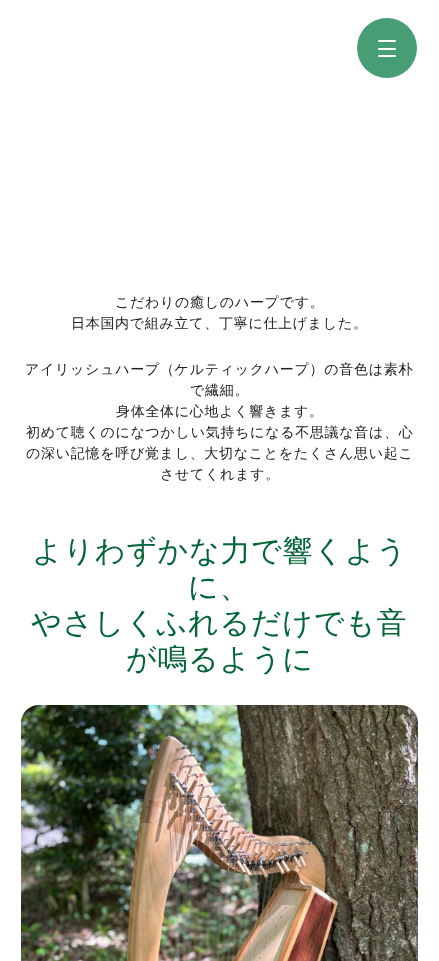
<svg xmlns="http://www.w3.org/2000/svg" width="439" height="961" viewBox="0 0 439 961">
  <rect width="100%" height="100%" fill="#fff"/>
  <circle cx="387" cy="48" r="30" fill="#479e74"/>
  <rect x="378" y="48" width="18" height="2" rx="1" fill="#fff"/>
  <rect x="378" y="40" width="18" height="2" rx="1" fill="#fff"/>
  <rect x="378" y="55" width="18" height="2" rx="1" fill="#fff"/>
  <image x="21" y="705" width="397" height="256" href="img/1.png"/>
  <g font-family="WenQuanYi Zen Hei" font-size="14" font-weight="500" letter-spacing="0.7" fill="#202020">
    <text x="115" y="307">こだわりの癒しのハープです。</text>
    <text x="71" y="328">日本国内で組み立て、丁寧に仕上げました。</text>
    <text x="25" y="374">アイリッシュハープ（ケルティックハープ）の音色は素朴</text>
    <text x="190" y="395">で繊細。</text>
    <text x="116" y="416">身体全体に心地よく響きます。</text>
    <text x="26" y="437">初めて聴くのになつかしい気持ちになる不思議な音は、心</text>
    <text x="26" y="458">の深い記憶を呼び覚まし、大切なことをたくさん思い起こ</text>
    <text x="160" y="479">させてくれます。</text>
  </g>
  <g font-family="WenQuanYi Zen Hei" font-size="30" font-weight="500" letter-spacing="0.7" fill="#046536">
    <text x="32" y="561">よりわずかな力で響くよう</text>
    <text x="188" y="597">に、</text>
    <text x="31" y="633">やさしくふれるだけでも音</text>
    <text x="126" y="669">が鳴るように</text>
  </g>
</svg>
